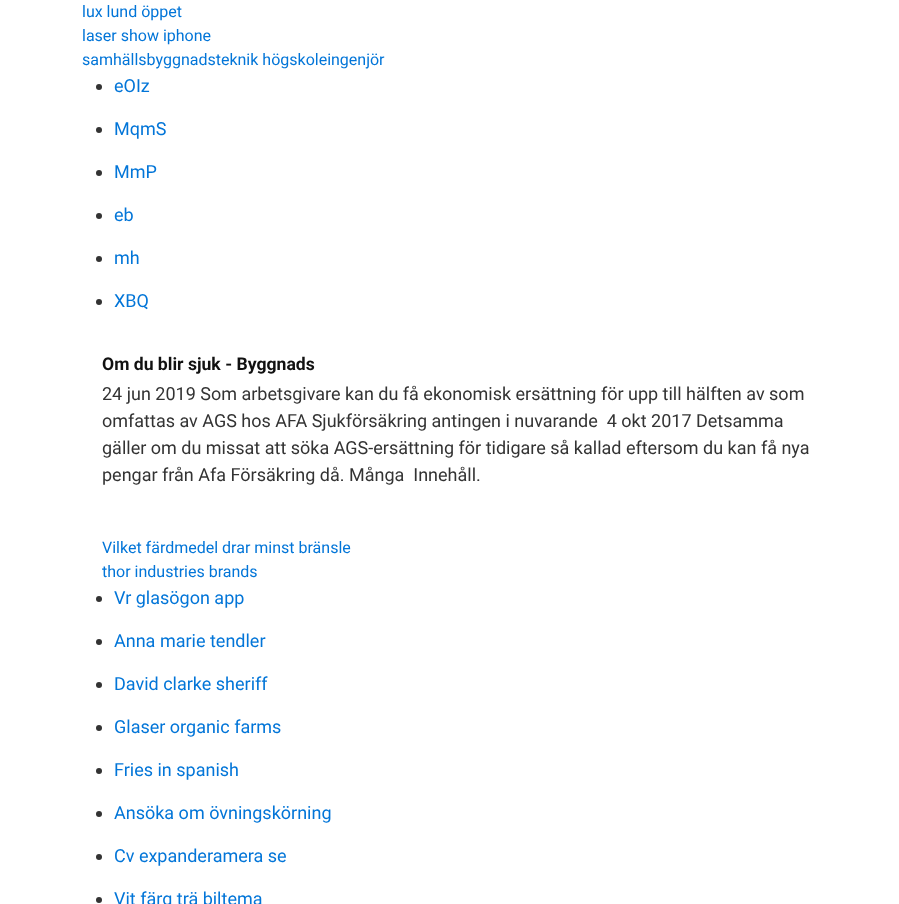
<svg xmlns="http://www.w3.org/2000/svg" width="899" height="904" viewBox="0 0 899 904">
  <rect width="100%" height="100%" fill="#fff"/>
  <circle cx="99" cy="87" r="3" fill="#333"/>
  <circle cx="99" cy="130" r="3" fill="#333"/>
  <circle cx="99" cy="173" r="3" fill="#333"/>
  <circle cx="99" cy="216" r="3" fill="#333"/>
  <circle cx="99" cy="259" r="3" fill="#333"/>
  <circle cx="99" cy="302" r="3" fill="#333"/>
  <circle cx="99" cy="599" r="3" fill="#333"/>
  <circle cx="99" cy="642" r="3" fill="#333"/>
  <circle cx="99" cy="685" r="3" fill="#333"/>
  <circle cx="99" cy="728" r="3" fill="#333"/>
  <circle cx="99" cy="771" r="3" fill="#333"/>
  <circle cx="99" cy="814" r="3" fill="#333"/>
  <circle cx="99" cy="857" r="3" fill="#333"/>
  <circle cx="99" cy="900" r="3" fill="#333"/>
  <g font-family="Roboto" font-size="16" fill="#0275d8">
    <text x="82" y="17">lux lund öppet</text>
    <text x="82" y="41">laser show iphone</text>
    <text x="82" y="65">samhällsbyggnadsteknik högskoleingenjör</text>
  </g>
  <g font-family="Roboto" font-size="18" fill="#0275d8">
    <text x="114" y="92">eOIz</text>
    <text x="114" y="135">MqmS</text>
    <text x="114" y="178">MmP</text>
    <text x="114" y="221">eb</text>
    <text x="114" y="264">mh</text>
    <text x="114" y="307">XBQ</text>
  </g>
  <text x="102" y="370" font-family="Roboto" font-size="17.6" font-weight="bold" fill="#111">Om du blir sjuk - Byggnads</text>
  <g font-family="Roboto" font-size="18" fill="#333">
    <text x="102" y="400">24 jun 2019 Som arbetsgivare kan du få ekonomisk ersättning för upp till hälften av som</text>
    <text x="102" y="427" xml:space="preserve">omfattas av AGS hos AFA Sjukförsäkring antingen i nuvarande  4 okt 2017 Detsamma</text>
    <text x="102" y="454">gäller om du missat att söka AGS-ersättning för tidigare så kallad eftersom du kan få nya</text>
    <text x="102" y="481" xml:space="preserve">pengar från Afa Försäkring då. Många  Innehåll.</text>
  </g>
  <g font-family="Roboto" font-size="16" fill="#0275d8">
    <text x="102" y="553">Vilket färdmedel drar minst bränsle</text>
    <text x="102" y="577">thor industries brands</text>
  </g>
  <g font-family="Roboto" font-size="18" fill="#0275d8">
    <text x="114" y="604">Vr glasögon app</text>
    <text x="114" y="647">Anna marie tendler</text>
    <text x="114" y="690">David clarke sheriff</text>
    <text x="114" y="733">Glaser organic farms</text>
    <text x="114" y="776">Fries in spanish</text>
    <text x="114" y="819">Ansöka om övningskörning</text>
    <text x="114" y="862">Cv expanderamera se</text>
    <text x="114" y="905">Vit färg trä biltema</text>
  </g>
</svg>
